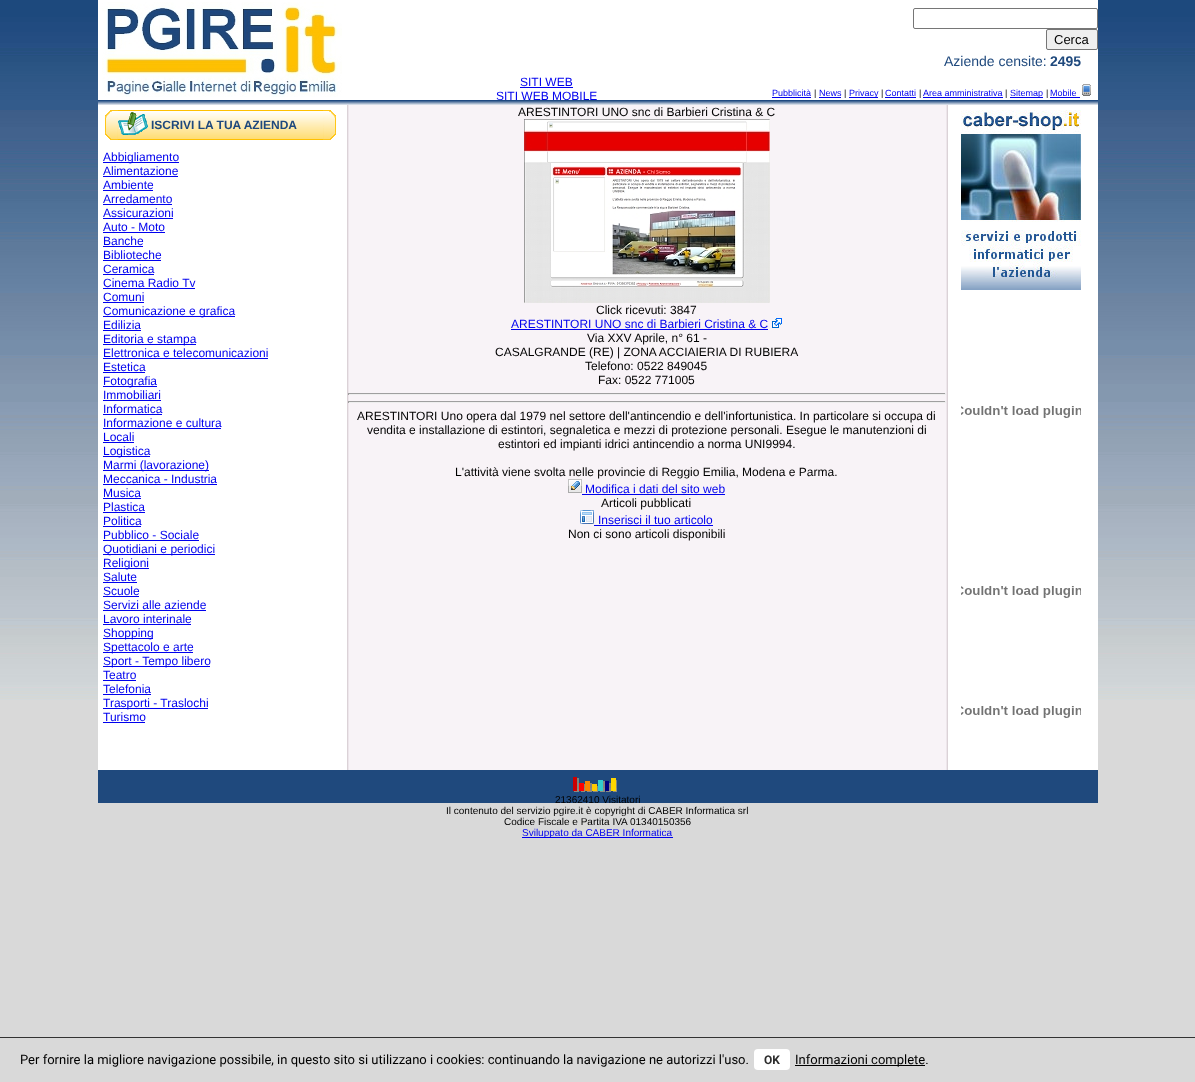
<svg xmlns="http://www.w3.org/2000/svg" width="1195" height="1082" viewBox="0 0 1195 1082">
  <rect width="100%" height="100%" fill="#d9d9d9"/>
  <image x="0" y="0" width="1195" height="700" href="img/1.png"/>
  <path d="M98 0h1000v770H98z" fill="#fff"/>
  <image x="102" y="2" width="240" height="95" href="img/2.png"/>
  <rect x="913.5" y="8.5" width="184" height="20" rx="1.5" fill="none" stroke="#767676"/>
  <rect x="1046.5" y="29.5" width="51" height="20" rx="1.5" fill="#efefef" stroke="#767676"/>
  <path d="M520 87h53v1H520z" fill="#00e"/>
  <path d="M772 97h39v1H772z" fill="#00e"/>
  <path d="M819 97h22v1H819z" fill="#00e"/>
  <path d="M849 97h29v1H849z" fill="#00e"/>
  <path d="M885 97h31v1H885z" fill="#00e"/>
  <path d="M923 97h80v1H923z" fill="#00e"/>
  <path d="M1010 97h33v1H1010z" fill="#00e"/>
  <path d="M1050 97h30v1H1050z" fill="#00e"/>
  <image x="1082" y="84" width="9" height="12" href="img/3.png"/>
  <image x="347" y="105" width="601" height="665" href="img/5.png"/>
  <image x="105" y="110" width="13" height="30" href="img/6.png"/>
  <image x="118" y="110" width="205" height="30" href="img/7.png"/>
  <image x="118" y="112" width="30" height="23" href="img/8.png"/>
  <image x="323" y="110" width="13" height="30" href="img/9.png"/>
  <path d="M103 162h76v1H103z" fill="#00e"/>
  <path d="M103 176h75v1H103z" fill="#00e"/>
  <path d="M103 190h50v1H103z" fill="#00e"/>
  <path d="M103 204h69v1H103z" fill="#00e"/>
  <path d="M103 218h70v1H103z" fill="#00e"/>
  <path d="M103 232h62v1H103z" fill="#00e"/>
  <path d="M103 246h40v1H103z" fill="#00e"/>
  <path d="M103 260h58v1H103z" fill="#00e"/>
  <path d="M103 274h51v1H103z" fill="#00e"/>
  <path d="M103 288h92v1H103z" fill="#00e"/>
  <path d="M103 302h41v1H103z" fill="#00e"/>
  <path d="M103 316h132v1H103z" fill="#00e"/>
  <path d="M103 330h38v1H103z" fill="#00e"/>
  <path d="M103 344h93v1H103z" fill="#00e"/>
  <path d="M103 358h165v1H103z" fill="#00e"/>
  <path d="M103 372h42v1H103z" fill="#00e"/>
  <path d="M103 386h54v1H103z" fill="#00e"/>
  <path d="M103 400h58v1H103z" fill="#00e"/>
  <path d="M103 414h59v1H103z" fill="#00e"/>
  <path d="M103 428h118v1H103z" fill="#00e"/>
  <path d="M103 442h31v1H103z" fill="#00e"/>
  <path d="M103 456h47v1H103z" fill="#00e"/>
  <path d="M103 470h106v1H103z" fill="#00e"/>
  <path d="M103 484h114v1H103z" fill="#00e"/>
  <path d="M103 498h38v1H103z" fill="#00e"/>
  <path d="M103 512h42v1H103z" fill="#00e"/>
  <path d="M103 526h38v1H103z" fill="#00e"/>
  <path d="M103 540h96v1H103z" fill="#00e"/>
  <path d="M103 554h112v1H103z" fill="#00e"/>
  <path d="M103 568h46v1H103z" fill="#00e"/>
  <path d="M103 582h34v1H103z" fill="#00e"/>
  <path d="M103 596h36v1H103z" fill="#00e"/>
  <path d="M103 610h103v1H103z" fill="#00e"/>
  <path d="M103 624h88v1H103z" fill="#00e"/>
  <path d="M103 638h50v1H103z" fill="#00e"/>
  <path d="M103 652h90v1H103z" fill="#00e"/>
  <path d="M103 666h107v1H103z" fill="#00e"/>
  <path d="M103 680h33v1H103z" fill="#00e"/>
  <path d="M103 694h48v1H103z" fill="#00e"/>
  <path d="M103 708h105v1H103z" fill="#00e"/>
  <path d="M103 722h42v1H103z" fill="#00e"/>
  <image x="524" y="119" width="246" height="184" href="img/10.png"/>
  <path d="M511 329h257v1H511z" fill="#00e"/>
  <image x="772" y="318" width="10" height="10" href="img/11.png"/>
  <path d="M348 393h598v1H348z" fill="#9f9f9f"/>
  <path d="M945 393h1v2H945z" fill="#eee"/>
  <path d="M348 394h598v1H348z" fill="#eee"/>
  <path d="M348 393h1v2H348z" fill="#9f9f9f"/>
  <path d="M348 401h598v1H348z" fill="#9f9f9f"/>
  <path d="M945 401h1v2H945z" fill="#eee"/>
  <path d="M348 402h598v1H348z" fill="#eee"/>
  <path d="M348 401h1v2H348z" fill="#9f9f9f"/>
  <image x="568" y="479" width="14" height="14" href="img/12.png"/>
  <path d="M582 494h143v1H582z" fill="#00e"/>
  <image x="580" y="510" width="14" height="14" href="img/13.png"/>
  <path d="M594 525h119v1H594z" fill="#00e"/>
  <image x="961" y="110" width="120" height="180" href="img/14.png"/>
  <image x="961" y="406" width="120" height="12" href="img/15.png"/>
  <image x="961" y="586" width="120" height="12" href="img/15.png"/>
  <image x="961" y="706" width="120" height="12" href="img/15.png"/>
  <path d="M98 770h1000v33H98z" fill="#1f497d"/>
  <image x="573" y="777" width="44" height="15" href="img/16.png"/>
  <path d="M522 837h151v1H522z" fill="#00e"/>
  <path d="M0 1037h1195v1H0z" fill="#333"/>
  <rect x="754" y="1049" width="36" height="21" rx="4" fill="#fff"/>
  <path d="M795 1065h130v1H795z" fill="#000"/>
  <text x="1054" y="44" font-family="Liberation Sans" font-size="13" fill="#000">Cerca</text>
  <text x="944" y="66" font-family="Liberation Sans" font-size="14" fill="#1f497d">Aziende censite:</text>
  <text x="1050" y="66" font-family="Liberation Sans" font-size="14" font-weight="bold" fill="#1f497d">2495</text>
  <g font-family="Liberation Sans" font-size="12" fill="#00e">
    <text x="520" y="86">SITI WEB</text>
    <text x="496" y="100">SITI WEB MOBILE</text>
  </g>
  <text x="772" y="96" font-family="Liberation Sans" font-size="9" fill="#00e">Pubblicità</text>
  <text x="814" y="96" font-family="Liberation Sans" font-size="9" fill="#000">|</text>
  <text x="819" y="96" font-family="Liberation Sans" font-size="9" fill="#00e">News</text>
  <text x="844" y="96" font-family="Liberation Sans" font-size="9" fill="#000">|</text>
  <text x="849" y="96" font-family="Liberation Sans" font-size="9" fill="#00e">Privacy</text>
  <text x="881" y="96" font-family="Liberation Sans" font-size="9" fill="#000">|</text>
  <text x="885" y="96" font-family="Liberation Sans" font-size="9" fill="#00e">Contatti</text>
  <text x="919" y="96" font-family="Liberation Sans" font-size="9" fill="#000">|</text>
  <text x="923" y="96" font-family="Liberation Sans" font-size="9" fill="#00e">Area amministrativa</text>
  <text x="1005" y="96" font-family="Liberation Sans" font-size="9" fill="#000">|</text>
  <text x="1010" y="96" font-family="Liberation Sans" font-size="9" fill="#00e">Sitemap</text>
  <text x="1046" y="96" font-family="Liberation Sans" font-size="9" fill="#000">|</text>
  <text x="1050" y="96" font-family="Liberation Sans" font-size="9" fill="#00e">Mobile</text>
  <image x="98" y="100" width="1000" height="5" href="img/4.png"/>
  <text x="151" y="129" font-family="Liberation Sans" font-size="12" font-weight="bold" fill="#1f497d">ISCRIVI LA TUA AZIENDA</text>
  <g font-family="Liberation Sans" font-size="12" fill="#00e">
    <text x="103" y="161">Abbigliamento</text>
    <text x="103" y="175">Alimentazione</text>
    <text x="103" y="189">Ambiente</text>
    <text x="103" y="203">Arredamento</text>
    <text x="103" y="217">Assicurazioni</text>
    <text x="103" y="231">Auto - Moto</text>
    <text x="103" y="245">Banche</text>
    <text x="103" y="259">Biblioteche</text>
    <text x="103" y="273">Ceramica</text>
    <text x="103" y="287">Cinema Radio Tv</text>
    <text x="103" y="301">Comuni</text>
    <text x="103" y="315">Comunicazione e grafica</text>
    <text x="103" y="329">Edilizia</text>
    <text x="103" y="343">Editoria e stampa</text>
    <text x="103" y="357">Elettronica e telecomunicazioni</text>
    <text x="103" y="371">Estetica</text>
    <text x="103" y="385">Fotografia</text>
    <text x="103" y="399">Immobiliari</text>
    <text x="103" y="413">Informatica</text>
    <text x="103" y="427">Informazione e cultura</text>
    <text x="103" y="441">Locali</text>
    <text x="103" y="455">Logistica</text>
    <text x="103" y="469">Marmi (lavorazione)</text>
    <text x="103" y="483">Meccanica - Industria</text>
    <text x="103" y="497">Musica</text>
    <text x="103" y="511">Plastica</text>
    <text x="103" y="525">Politica</text>
    <text x="103" y="539">Pubblico - Sociale</text>
    <text x="103" y="553">Quotidiani e periodici</text>
    <text x="103" y="567">Religioni</text>
    <text x="103" y="581">Salute</text>
    <text x="103" y="595">Scuole</text>
    <text x="103" y="609">Servizi alle aziende</text>
    <text x="103" y="623">Lavoro interinale</text>
    <text x="103" y="637">Shopping</text>
    <text x="103" y="651">Spettacolo e arte</text>
    <text x="103" y="665">Sport - Tempo libero</text>
    <text x="103" y="679">Teatro</text>
    <text x="103" y="693">Telefonia</text>
    <text x="103" y="707">Trasporti - Traslochi</text>
    <text x="103" y="721">Turismo</text>
  </g>
  <g font-family="Liberation Sans" font-size="12" fill="#000">
    <text x="518" y="116">ARESTINTORI UNO snc di Barbieri Cristina &amp; C</text>
    <text x="596" y="314">Click ricevuti: 3847</text>
  </g>
  <text x="511" y="328" font-family="Liberation Sans" font-size="12" fill="#00e">ARESTINTORI UNO snc di Barbieri Cristina &amp; C</text>
  <g font-family="Liberation Sans" font-size="12" fill="#000">
    <text x="587" y="342">Via XXV Aprile, n° 61 -</text>
    <text x="495" y="356">CASALGRANDE (RE) | ZONA ACCIAIERIA DI RUBIERA</text>
    <text x="585" y="370">Telefono: 0522 849045</text>
    <text x="598" y="384">Fax: 0522 771005</text>
    <text x="357" y="420">ARESTINTORI Uno opera dal 1979 nel settore dell'antincendio e dell'infortunistica. In particolare si occupa di</text>
    <text x="367" y="434">vendita e installazione di estintori, segnaletica e mezzi di protezione personali. Esegue le manutenzioni di</text>
    <text x="498" y="448">estintori ed impianti idrici antincendio a norma UNI9994.</text>
    <text x="455" y="476">L'attività viene svolta nelle provincie di Reggio Emilia, Modena e Parma.</text>
  </g>
  <text x="585" y="493" font-family="Liberation Sans" font-size="12" fill="#00e">Modifica i dati del sito web</text>
  <text x="601" y="507" font-family="Liberation Sans" font-size="12" fill="#000">Articoli pubblicati</text>
  <text x="598" y="524" font-family="Liberation Sans" font-size="12" fill="#00e">Inserisci il tuo articolo</text>
  <text x="568" y="538" font-family="Liberation Sans" font-size="12" fill="#000">Non ci sono articoli disponibili</text>
  <g font-family="Liberation Sans" font-size="10" fill="#000">
    <text x="555" y="803">21362410 Visitatori</text>
    <text x="446" y="814">Il contenuto del servizio pgire.it è copyright di CABER Informatica srl</text>
    <text x="504" y="825">Codice Fiscale e Partita IVA 01340150356</text>
  </g>
  <text x="522" y="836" font-family="Liberation Sans" font-size="10" fill="#00e">Sviluppato da CABER Informatica</text>
  <text x="20" y="1064" font-family="Roboto" font-size="13" fill="#000">Per fornire la migliore navigazione possibile, in questo sito si utilizzano i cookies: continuando la navigazione ne autorizzi l'uso.</text>
  <text x="764" y="1064" font-family="Roboto" font-size="12" font-weight="bold" fill="#2d2d2d">OK</text>
  <text x="795" y="1064" font-family="Roboto" font-size="13" fill="#000">Informazioni complete.</text>
</svg>
